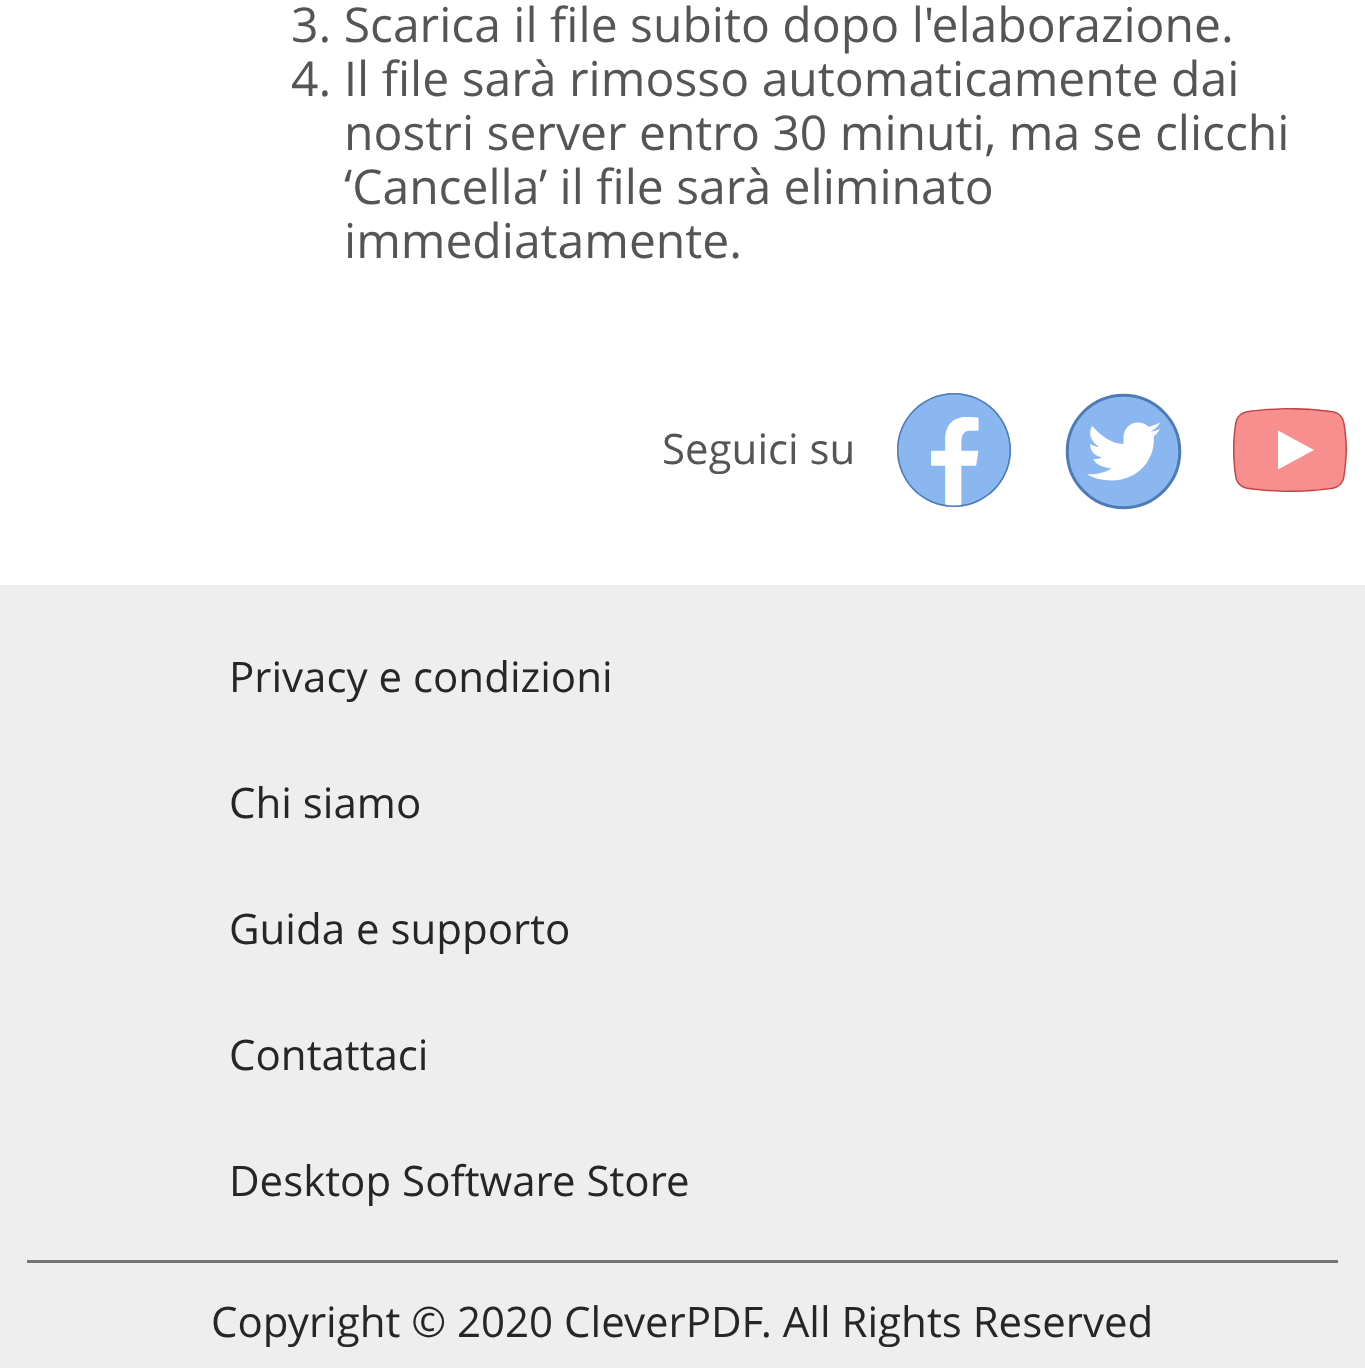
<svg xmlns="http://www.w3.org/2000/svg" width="1365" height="1368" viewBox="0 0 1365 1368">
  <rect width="100%" height="100%" fill="#fff"/>
  <image x="897" y="393" width="114" height="114" href="img/1.png"/>
  <image x="1065" y="393" width="117" height="117" href="img/2.png"/>
  <image x="1233" y="408" width="114" height="84" href="img/3.png"/>
  <path d="M0 585h1365v783H0z" fill="#eee"/>
  <path d="M27 1260h1311v3H27z" fill="#747474"/>
  <g font-family="Open Sans" font-size="48" fill="#555">
    <text x="291" y="42">3. Scarica il file subito dopo l'elaborazione.</text>
    <text x="291" y="96">4. Il file sarà rimosso automaticamente dai</text>
    <text x="344" y="150">nostri server entro 30 minuti, ma se clicchi</text>
    <text x="344" y="204">‘Cancella’ il file sarà eliminato</text>
    <text x="344" y="258">immediatamente.</text>
  </g>
  <text x="662" y="464" font-family="Open Sans" font-size="42" fill="#555">Seguici su</text>
  <g font-family="Open Sans" font-size="42" fill="#262626">
    <text x="229" y="692">Privacy e condizioni</text>
    <text x="229" y="818">Chi siamo</text>
    <text x="229" y="944">Guida e supporto</text>
    <text x="229" y="1070">Contattaci</text>
    <text x="229" y="1196">Desktop Software Store</text>
    <text x="211" y="1337">Copyright © 2020 CleverPDF. All Rights Reserved</text>
  </g>
</svg>
